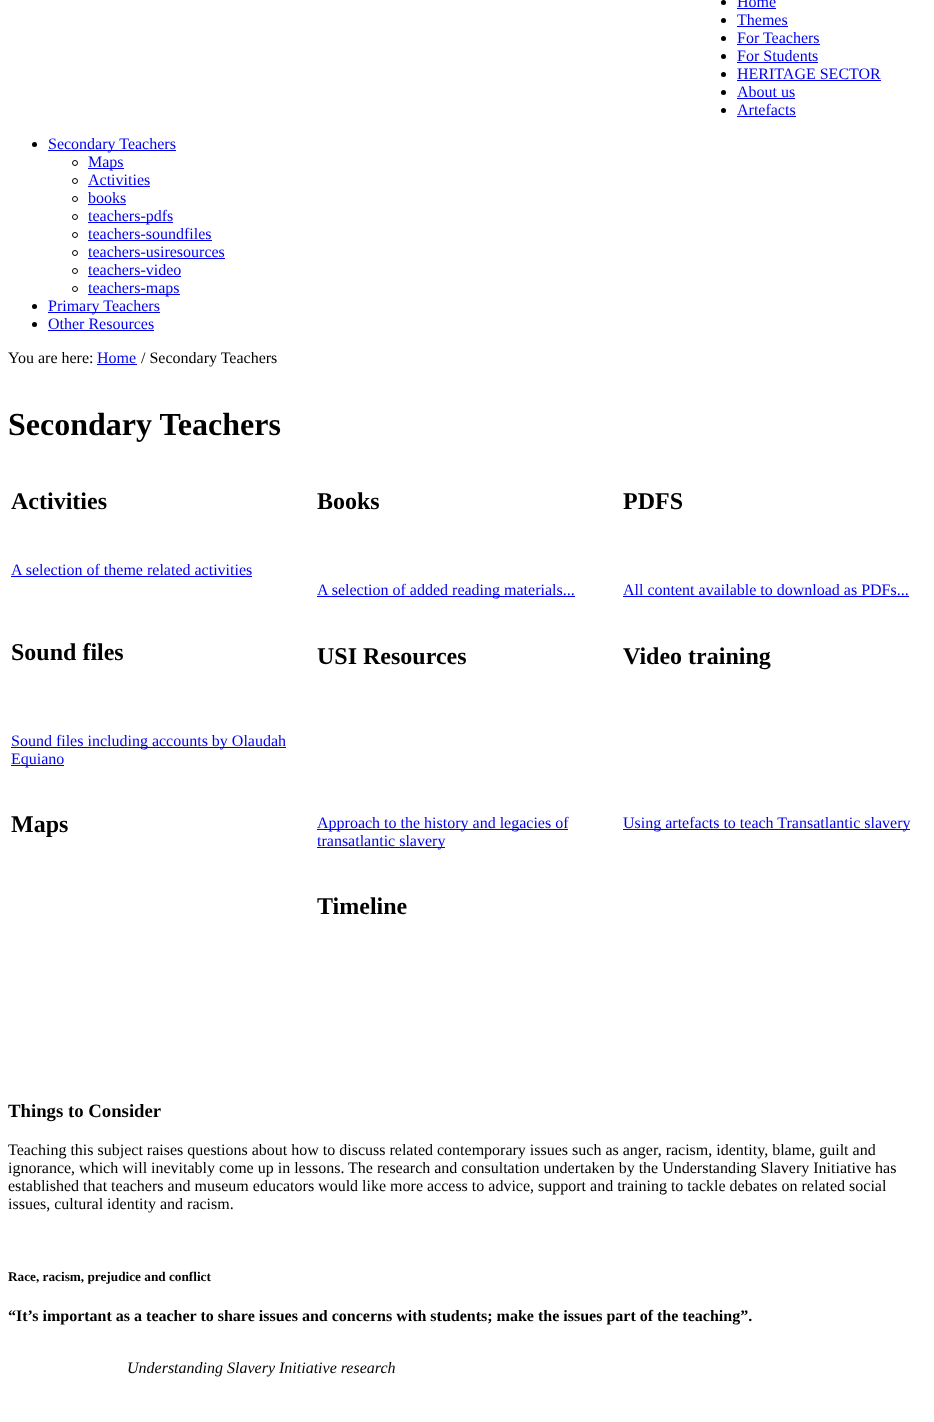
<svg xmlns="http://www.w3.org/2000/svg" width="934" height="1422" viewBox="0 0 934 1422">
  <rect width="100%" height="100%" fill="#fff"/>
  <circle cx="723.5" cy="2.5" r="2.5" fill="#000"/>
  <path d="M737 8h39v1H737z" fill="#00e"/>
  <circle cx="723.5" cy="20.5" r="2.5" fill="#000"/>
  <path d="M737 26h51v1H737z" fill="#00e"/>
  <circle cx="723.5" cy="38.5" r="2.5" fill="#000"/>
  <path d="M737 44h83v1H737z" fill="#00e"/>
  <circle cx="723.5" cy="56.5" r="2.5" fill="#000"/>
  <path d="M737 62h81v1H737z" fill="#00e"/>
  <circle cx="723.5" cy="74.5" r="2.5" fill="#000"/>
  <path d="M737 80h144v1H737z" fill="#00e"/>
  <circle cx="723.5" cy="92.5" r="2.5" fill="#000"/>
  <path d="M737 98h58v1H737z" fill="#00e"/>
  <circle cx="723.5" cy="110.5" r="2.5" fill="#000"/>
  <path d="M737 116h59v1H737z" fill="#00e"/>
  <circle cx="34.5" cy="144.5" r="2.5" fill="#000"/>
  <path d="M48 150h128v1H48z" fill="#00e"/>
  <circle cx="75" cy="163" r="2.5" fill="none" stroke="#000"/>
  <path d="M88 168h36v1H88z" fill="#00e"/>
  <circle cx="75" cy="181" r="2.5" fill="none" stroke="#000"/>
  <path d="M88 186h62v1H88z" fill="#00e"/>
  <circle cx="75" cy="199" r="2.5" fill="none" stroke="#000"/>
  <path d="M88 204h38v1H88z" fill="#00e"/>
  <circle cx="75" cy="217" r="2.5" fill="none" stroke="#000"/>
  <path d="M88 222h85v1H88z" fill="#00e"/>
  <circle cx="75" cy="235" r="2.5" fill="none" stroke="#000"/>
  <path d="M88 240h124v1H88z" fill="#00e"/>
  <circle cx="75" cy="253" r="2.5" fill="none" stroke="#000"/>
  <path d="M88 258h137v1H88z" fill="#00e"/>
  <circle cx="75" cy="271" r="2.5" fill="none" stroke="#000"/>
  <path d="M88 276h93v1H88z" fill="#00e"/>
  <circle cx="75" cy="289" r="2.5" fill="none" stroke="#000"/>
  <path d="M88 294h92v1H88z" fill="#00e"/>
  <circle cx="34.5" cy="306.5" r="2.5" fill="#000"/>
  <path d="M48 312h112v1H48z" fill="#00e"/>
  <circle cx="34.5" cy="324.5" r="2.5" fill="#000"/>
  <path d="M48 330h106v1H48z" fill="#00e"/>
  <path d="M97 364h40v1H97z" fill="#00e"/>
  <path d="M11 576h241v1H11z" fill="#00e"/>
  <path d="M11 747h275v1H11z" fill="#00e"/>
  <path d="M11 765h53v1H11z" fill="#00e"/>
  <path d="M317 596h258v1H317z" fill="#00e"/>
  <path d="M317 829h251v1H317z" fill="#00e"/>
  <path d="M317 847h128v1H317z" fill="#00e"/>
  <path d="M623 596h286v1H623z" fill="#00e"/>
  <path d="M623 829h287v1H623z" fill="#00e"/>
  <g font-family="Liberation Serif" font-size="16" fill="#00e">
    <text x="737" y="7">Home</text>
    <text x="737" y="25">Themes</text>
    <text x="737" y="43">For Teachers</text>
    <text x="737" y="61">For Students</text>
    <text x="737" y="79">HERITAGE SECTOR</text>
    <text x="737" y="97">About us</text>
    <text x="737" y="115">Artefacts</text>
    <text x="48" y="149">Secondary Teachers</text>
    <text x="88" y="167">Maps</text>
    <text x="88" y="185">Activities</text>
    <text x="88" y="203">books</text>
    <text x="88" y="221">teachers-pdfs</text>
    <text x="88" y="239">teachers-soundfiles</text>
    <text x="88" y="257">teachers-usiresources</text>
    <text x="88" y="275">teachers-video</text>
    <text x="88" y="293">teachers-maps</text>
    <text x="48" y="311">Primary Teachers</text>
    <text x="48" y="329">Other Resources</text>
  </g>
  <text x="8" y="363" font-family="Liberation Serif" font-size="16" fill="#000">You are here:</text>
  <text x="97" y="363" font-family="Liberation Serif" font-size="16" fill="#00e">Home</text>
  <text x="141" y="363" font-family="Liberation Serif" font-size="16" fill="#000">/ Secondary Teachers</text>
  <text x="8" y="435" font-family="Liberation Serif" font-size="32" font-weight="bold" fill="#000">Secondary Teachers</text>
  <text x="11" y="509" font-family="Liberation Serif" font-size="24" font-weight="bold" fill="#000">Activities</text>
  <text x="11" y="575" font-family="Liberation Serif" font-size="16" fill="#00e">A selection of theme related activities</text>
  <text x="11" y="660" font-family="Liberation Serif" font-size="24" font-weight="bold" fill="#000">Sound files</text>
  <g font-family="Liberation Serif" font-size="16" fill="#00e">
    <text x="11" y="746">Sound files including accounts by Olaudah</text>
    <text x="11" y="764">Equiano</text>
  </g>
  <g font-family="Liberation Serif" font-size="24" font-weight="bold" fill="#000">
    <text x="11" y="832">Maps</text>
    <text x="317" y="509">Books</text>
  </g>
  <text x="317" y="595" font-family="Liberation Serif" font-size="16" fill="#00e">A selection of added reading materials...</text>
  <text x="317" y="664" font-family="Liberation Serif" font-size="24" font-weight="bold" fill="#000">USI Resources</text>
  <g font-family="Liberation Serif" font-size="16" fill="#00e">
    <text x="317" y="828">Approach to the history and legacies of</text>
    <text x="317" y="846">transatlantic slavery</text>
  </g>
  <g font-family="Liberation Serif" font-size="24" font-weight="bold" fill="#000">
    <text x="317" y="914">Timeline</text>
    <text x="623" y="509">PDFS</text>
  </g>
  <text x="623" y="595" font-family="Liberation Serif" font-size="16" fill="#00e">All content available to download as PDFs...</text>
  <text x="623" y="664" font-family="Liberation Serif" font-size="24" font-weight="bold" fill="#000">Video training</text>
  <text x="623" y="828" font-family="Liberation Serif" font-size="16" fill="#00e">Using artefacts to teach Transatlantic slavery</text>
  <text x="8" y="1117" font-family="Liberation Serif" font-size="18.75" font-weight="bold" fill="#000">Things to Consider</text>
  <g font-family="Liberation Serif" font-size="16" fill="#000">
    <text x="8" y="1155">Teaching this subject raises questions about how to discuss related contemporary issues such as anger, racism, identity, blame, guilt and</text>
    <text x="8" y="1173">ignorance, which will inevitably come up in lessons. The research and consultation undertaken by the Understanding Slavery Initiative has</text>
    <text x="8" y="1191">established that teachers and museum educators would like more access to advice, support and training to tackle debates on related social</text>
    <text x="8" y="1209">issues, cultural identity and racism.</text>
  </g>
  <text x="8" y="1281" font-family="Liberation Serif" font-size="13.25" font-weight="bold" fill="#000">Race, racism, prejudice and conflict</text>
  <text x="8" y="1321" font-family="Liberation Serif" font-size="16" font-weight="bold" fill="#000">“It’s important as a teacher to share issues and concerns with students; make the issues part of the teaching”.</text>
  <text x="127" y="1373" font-family="Liberation Serif" font-size="16" font-style="italic" fill="#000">Understanding Slavery Initiative research</text>
</svg>
